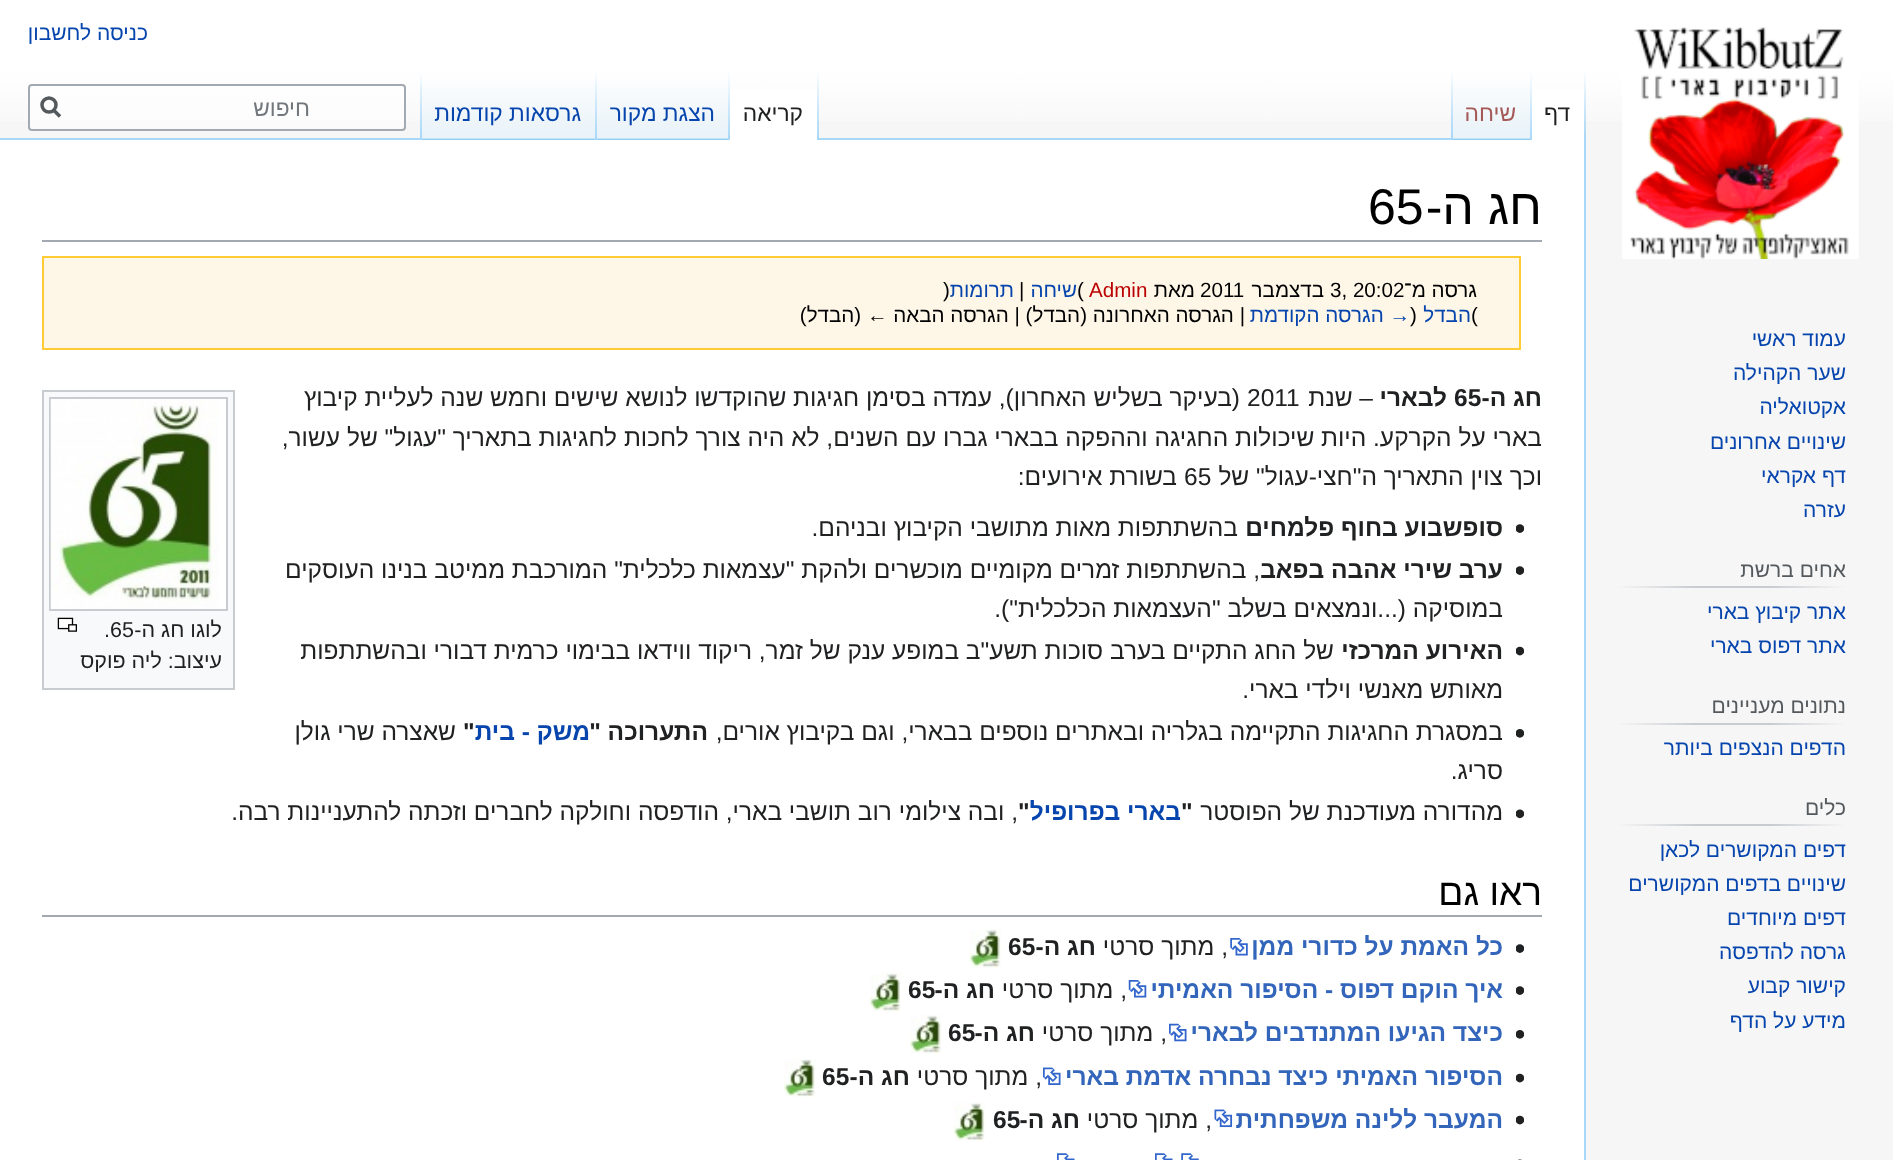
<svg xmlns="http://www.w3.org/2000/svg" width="1893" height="1160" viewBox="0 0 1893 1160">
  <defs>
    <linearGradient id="g1" gradientUnits="userSpaceOnUse" x1="947" y1="0" x2="947" y2="140"><stop offset="0.5" stop-color="#fff"/><stop offset="1" stop-color="#f6f6f6"/></linearGradient>
    <linearGradient id="g2" gradientUnits="userSpaceOnUse" x1="1585" y1="70" x2="1585" y2="140"><stop offset="0" stop-color="#a7d7f9" stop-opacity="0"/><stop offset="1" stop-color="#a7d7f9"/></linearGradient>
    <linearGradient id="g3" gradientUnits="userSpaceOnUse" x1="1530" y1="70" x2="1530" y2="140"><stop offset="0" stop-color="#fff"/><stop offset="1" stop-color="#a7d7f9"/></linearGradient>
    <linearGradient id="g4" gradientUnits="userSpaceOnUse" x1="1490" y1="140" x2="1490" y2="70"><stop offset="0" stop-color="#77c1f6"/><stop offset="0.03" stop-color="#e8f2f8"/><stop offset="1" stop-color="#fff"/></linearGradient>
    <linearGradient id="g5" gradientUnits="userSpaceOnUse" x1="1452" y1="70" x2="1452" y2="140"><stop offset="0" stop-color="#a7d7f9" stop-opacity="0"/><stop offset="1" stop-color="#a7d7f9"/></linearGradient>
    <linearGradient id="g6" gradientUnits="userSpaceOnUse" x1="818" y1="70" x2="818" y2="140"><stop offset="0" stop-color="#a7d7f9" stop-opacity="0"/><stop offset="1" stop-color="#a7d7f9"/></linearGradient>
    <linearGradient id="g7" gradientUnits="userSpaceOnUse" x1="729" y1="70" x2="729" y2="140"><stop offset="0" stop-color="#fff"/><stop offset="1" stop-color="#a7d7f9"/></linearGradient>
    <linearGradient id="g8" gradientUnits="userSpaceOnUse" x1="662" y1="140" x2="662" y2="70"><stop offset="0" stop-color="#77c1f6"/><stop offset="0.03" stop-color="#e8f2f8"/><stop offset="1" stop-color="#fff"/></linearGradient>
    <linearGradient id="g9" gradientUnits="userSpaceOnUse" x1="596" y1="70" x2="596" y2="140"><stop offset="0" stop-color="#a7d7f9" stop-opacity="0"/><stop offset="1" stop-color="#a7d7f9"/></linearGradient>
    <linearGradient id="g10" gradientUnits="userSpaceOnUse" x1="508" y1="140" x2="508" y2="70"><stop offset="0" stop-color="#77c1f6"/><stop offset="0.03" stop-color="#e8f2f8"/><stop offset="1" stop-color="#fff"/></linearGradient>
    <linearGradient id="g11" gradientUnits="userSpaceOnUse" x1="421" y1="70" x2="421" y2="140"><stop offset="0" stop-color="#a7d7f9" stop-opacity="0"/><stop offset="1" stop-color="#a7d7f9"/></linearGradient>
    <linearGradient id="g12" gradientUnits="userSpaceOnUse" x1="1846" y1="587" x2="1617" y2="587"><stop offset="0" stop-color="#f6f6f6"/><stop offset="0.33" stop-color="#c8ccd1"/><stop offset="0.66" stop-color="#c8ccd1"/><stop offset="1" stop-color="#f6f6f6"/></linearGradient>
    <linearGradient id="g13" gradientUnits="userSpaceOnUse" x1="1846" y1="724" x2="1617" y2="724"><stop offset="0" stop-color="#f6f6f6"/><stop offset="0.33" stop-color="#c8ccd1"/><stop offset="0.66" stop-color="#c8ccd1"/><stop offset="1" stop-color="#f6f6f6"/></linearGradient>
    <linearGradient id="g14" gradientUnits="userSpaceOnUse" x1="1846" y1="825" x2="1617" y2="825"><stop offset="0" stop-color="#f6f6f6"/><stop offset="0.33" stop-color="#c8ccd1"/><stop offset="0.66" stop-color="#c8ccd1"/><stop offset="1" stop-color="#f6f6f6"/></linearGradient>
  </defs>
  <rect width="100%" height="100%" fill="#f6f6f6"/>
  <path d="M0 0h1893v121H0z" fill="url(#g1)"/>
  <path d="M1584 138h2v1022H1584z" fill="#a7d7f9"/>
  <path d="M1584 70h2v70H1584z" fill="url(#g2)"/>
  <path d="M1532 89h52v51H1532z" fill="#fff"/>
  <path d="M1530 70h2v70H1530z" fill="url(#g3)"/>
  <path d="M1451 80h79v60H1451z" fill="url(#g4)"/>
  <path d="M1451 70h2v70H1451z" fill="url(#g5)"/>
  <path d="M0 138h1451v2H0z" fill="#a7d7f9"/>
  <path d="M817 70h2v70H817z" fill="url(#g6)"/>
  <path d="M730 89h87v51H730z" fill="#fff"/>
  <path d="M728 70h2v70H728z" fill="url(#g7)"/>
  <path d="M595 80h133v60H595z" fill="url(#g8)"/>
  <path d="M595 70h2v70H595z" fill="url(#g9)"/>
  <path d="M420 80h175v60H420z" fill="url(#g10)"/>
  <path d="M420 70h2v70H420z" fill="url(#g11)"/>
  <rect x="29" y="85" width="376" height="45" rx="3" fill="#ffffff80" stroke="#a2a9b1" stroke-width="2"/>
  <path d="M60 116.5L53 109.5" fill="none" stroke="#54595d" stroke-width="3.5"/>
  <circle cx="49" cy="105" r="7" fill="none" stroke="#54595d" stroke-width="3.5"/>
  <image x="1622" y="27" width="237" height="232" href="img/1.png"/>
  <path d="M1617 586h229v2H1617z" fill="url(#g12)"/>
  <path d="M1617 723h229v2H1617z" fill="url(#g13)"/>
  <path d="M1617 824h229v2H1617z" fill="url(#g14)"/>
  <path d="M0 140h1584v1020H0z" fill="#fff"/>
  <path d="M42 240h1500v2H42z" fill="#a2a9b1"/>
  <path d="M43 257h1477v92H43z" fill="#fef6e7" stroke="#fc3" stroke-width="2"/>
  <image x="1516" y="524" width="8" height="9" href="img/2.png"/>
  <image x="1516" y="566" width="8" height="9" href="img/2.png"/>
  <image x="1516" y="646" width="8" height="10" href="img/3.png"/>
  <image x="1516" y="729" width="8" height="9" href="img/4.png"/>
  <image x="1516" y="809" width="8" height="10" href="img/5.png"/>
  <path d="M43 391h191v298H43z" fill="#f8f9fa" stroke="#c8ccd1" stroke-width="2"/>
  <path d="M219 399h7v210H219z" fill="#fff"/>
  <path d="M50 398h177v212H50z" fill="none" stroke="#c8ccd1" stroke-width="2"/>
  <image x="50" y="399" width="169" height="210" href="img/6.png"/>
  <image x="57" y="617" width="20" height="15" href="img/7.png"/>
  <path d="M42 915h1500v2H42z" fill="#a2a9b1"/>
  <image x="1516" y="944" width="8" height="9" href="img/2.png"/>
  <image x="1230" y="938" width="18" height="18" href="img/8.png"/>
  <image x="969" y="929" width="32" height="39" href="img/9.png"/>
  <image x="1516" y="986" width="8" height="9" href="img/2.png"/>
  <image x="1128" y="980" width="19" height="18" href="img/10.png"/>
  <image x="869" y="973" width="32" height="39" href="img/11.png"/>
  <image x="1516" y="1030" width="8" height="9" href="img/4.png"/>
  <image x="1169" y="1023" width="18" height="19" href="img/12.png"/>
  <image x="910" y="1015" width="32" height="39" href="img/13.png"/>
  <image x="1516" y="1073" width="8" height="10" href="img/3.png"/>
  <image x="1043" y="1067" width="18" height="19" href="img/14.png"/>
  <image x="784" y="1059" width="32" height="39" href="img/15.png"/>
  <image x="1516" y="1115" width="8" height="10" href="img/3.png"/>
  <image x="1214" y="1109" width="19" height="19" href="img/16.png"/>
  <image x="953" y="1102" width="32" height="39" href="img/17.png"/>
  <image x="1518" y="1159" width="4" height="1" href="img/18.png"/>
  <image x="1057" y="1153" width="142" height="7" href="img/19.png"/>
  <text x="148" y="40" font-family="Liberation Sans" font-size="21" direction="rtl" fill="#0645ad">כניסה לחשבון</text>
  <text x="1570" y="121" font-family="Liberation Sans" font-size="22.75" direction="rtl" fill="#202122">דף</text>
  <text x="1516" y="121" font-family="Liberation Sans" font-size="22.75" direction="rtl" fill="#a55858">שיחה</text>
  <text x="803" y="121" font-family="Liberation Sans" font-size="22.75" direction="rtl" fill="#202122">קריאה</text>
  <g font-family="Liberation Sans" font-size="22.75" direction="rtl" fill="#0645ad">
    <text x="715" y="121">הצגת מקור</text>
    <text x="581" y="121">גרסאות קודמות</text>
  </g>
  <text x="310" y="116" font-family="Liberation Sans" font-size="22.75" direction="rtl" fill="#72777d">חיפוש</text>
  <g font-family="Liberation Sans" font-size="21" direction="rtl" fill="#0645ad">
    <text x="1846" y="346">עמוד ראשי</text>
    <text x="1846" y="380">שער הקהילה</text>
    <text x="1846" y="414">אקטואליה</text>
    <text x="1846" y="449">שינויים אחרונים</text>
    <text x="1846" y="483">דף אקראי</text>
    <text x="1846" y="517">עזרה</text>
  </g>
  <text x="1846" y="577" font-family="Liberation Sans" font-size="21" direction="rtl" fill="#54595d">אחים ברשת</text>
  <g font-family="Liberation Sans" font-size="21" direction="rtl" fill="#0645ad">
    <text x="1846" y="619">אתר קיבוץ בארי</text>
    <text x="1846" y="653">אתר דפוס בארי</text>
  </g>
  <text x="1846" y="713" font-family="Liberation Sans" font-size="21" direction="rtl" fill="#54595d">נתונים מעניינים</text>
  <text x="1846" y="755" font-family="Liberation Sans" font-size="21" direction="rtl" fill="#0645ad">הדפים הנצפים ביותר</text>
  <text x="1846" y="815" font-family="Liberation Sans" font-size="21" direction="rtl" fill="#54595d">כלים</text>
  <g font-family="Liberation Sans" font-size="21" direction="rtl" fill="#0645ad">
    <text x="1846" y="857">דפים המקושרים לכאן</text>
    <text x="1846" y="891">שינויים בדפים המקושרים</text>
    <text x="1846" y="925">דפים מיוחדים</text>
    <text x="1846" y="959">גרסה להדפסה</text>
    <text x="1846" y="993">קישור קבוע</text>
    <text x="1846" y="1028">מידע על הדף</text>
  </g>
  <text x="1542" y="224" font-family="Liberation Sans" font-size="50" direction="rtl" fill="#000">חג ה-</text>
  <text x="1368" y="224" font-family="Liberation Sans" font-size="50" fill="#000">65</text>
  <text x="1477" y="297" font-family="Liberation Sans" font-size="20.6" direction="rtl" fill="#000">גרסה מ־</text>
  <text x="1330" y="297" font-family="Liberation Sans" font-size="20.6" fill="#000">3, 20:02</text>
  <text x="1324" y="297" font-family="Liberation Sans" font-size="20.6" direction="rtl" fill="#000">בדצמבר</text>
  <text x="1200" y="297" font-family="Liberation Sans" font-size="20.6" fill="#000">2011</text>
  <text x="1195" y="297" font-family="Liberation Sans" font-size="20.6" direction="rtl" fill="#000">מאת</text>
  <text x="1089" y="297" font-family="Liberation Sans" font-size="20.6" fill="#ba0000">Admin</text>
  <text x="1077" y="297" font-family="Liberation Sans" font-size="20.6" fill="#000">(</text>
  <text x="1077" y="297" font-family="Liberation Sans" font-size="20.6" direction="rtl" fill="#0645ad">שיחה</text>
  <text x="1019" y="297" font-family="Liberation Sans" font-size="20.6" fill="#000">|</text>
  <text x="1014" y="297" font-family="Liberation Sans" font-size="20.6" direction="rtl" fill="#0645ad">תרומות</text>
  <g font-family="Liberation Sans" font-size="20.6" fill="#000">
    <text x="943" y="297">)</text>
    <text x="1471" y="322">(</text>
  </g>
  <text x="1471" y="322" font-family="Liberation Sans" font-size="20.6" direction="rtl" fill="#0645ad">הבדל</text>
  <text x="1410" y="322" font-family="Liberation Sans" font-size="20.6" fill="#000">)</text>
  <text x="1410" y="322" font-family="Liberation Sans" font-size="20.6" direction="rtl" fill="#0645ad">→ הגרסה הקודמת</text>
  <text x="1245" y="322" font-family="Liberation Sans" font-size="20.6" direction="rtl" fill="#000">| הגרסה האחרונה (הבדל) | הגרסה הבאה ← (הבדל)</text>
  <text x="1542" y="406" font-family="Liberation Sans" font-size="24.5" font-weight="bold" direction="rtl" fill="#202122">חג ה-</text>
  <text x="1454" y="406" font-family="Liberation Sans" font-size="24.5" font-weight="bold" fill="#202122">65</text>
  <text x="1447" y="406" font-family="Liberation Sans" font-size="24.5" font-weight="bold" direction="rtl" fill="#202122">לבארי</text>
  <text x="1373" y="406" font-family="Liberation Sans" font-size="24.5" direction="rtl" fill="#202122">– שנת</text>
  <text x="1247" y="406" font-family="Liberation Sans" font-size="24.5" fill="#202122">2011</text>
  <g font-family="Liberation Sans" font-size="24.5" direction="rtl" fill="#202122">
    <text x="1240" y="406">(בעיקר בשליש האחרון), עמדה בסימן חגיגות שהוקדשו לנושא שישים וחמש שנה לעליית קיבוץ</text>
    <text x="1542" y="446">בארי על הקרקע. היות שיכולות החגיגה וההפקה בבארי גברו עם השנים, לא היה צורך לחכות לחגיגות בתאריך "עגול" של עשור,</text>
    <text x="1542" y="485">וכך צוין התאריך ה"חצי-עגול" של</text>
  </g>
  <text x="1184" y="485" font-family="Liberation Sans" font-size="24.5" fill="#202122">65</text>
  <text x="1177" y="485" font-family="Liberation Sans" font-size="24.5" direction="rtl" fill="#202122">בשורת אירועים:</text>
  <text x="1503" y="536" font-family="Liberation Sans" font-size="24.5" font-weight="bold" direction="rtl" fill="#202122">סופשבוע בחוף פלמחים</text>
  <text x="1238" y="536" font-family="Liberation Sans" font-size="24.5" direction="rtl" fill="#202122">בהשתתפות מאות מתושבי הקיבוץ ובניהם.</text>
  <text x="1503" y="578" font-family="Liberation Sans" font-size="24.5" font-weight="bold" direction="rtl" fill="#202122">ערב שירי אהבה בפאב</text>
  <g font-family="Liberation Sans" font-size="24.5" direction="rtl" fill="#202122">
    <text x="1260" y="578">, בהשתתפות זמרים מקומיים מוכשרים ולהקת "עצמאות כלכלית" המורכבת ממיטב בנינו העוסקים</text>
    <text x="1503" y="617">במוסיקה (...ונמצאים בשלב "העצמאות הכלכלית").</text>
  </g>
  <text x="1503" y="659" font-family="Liberation Sans" font-size="24.5" font-weight="bold" direction="rtl" fill="#202122">האירוע המרכזי</text>
  <g font-family="Liberation Sans" font-size="24.5" direction="rtl" fill="#202122">
    <text x="1334" y="659">של החג התקיים בערב סוכות תשע"ב במופע ענק של זמר, ריקוד ווידאו בבימוי כרמית דבורי ובהשתתפות</text>
    <text x="1503" y="698">מאותש מאנשי וילדי בארי.</text>
    <text x="1503" y="740">במסגרת החגיגות התקיימה בגלריה ובאתרים נוספים בבארי, וגם בקיבוץ אורים,</text>
  </g>
  <text x="708" y="740" font-family="Liberation Sans" font-size="24.5" font-weight="bold" direction="rtl" fill="#202122">התערוכה "</text>
  <text x="590" y="740" font-family="Liberation Sans" font-size="24.5" font-weight="bold" direction="rtl" fill="#0645ad">משק - בית</text>
  <text x="463" y="740" font-family="Liberation Sans" font-size="24.5" font-weight="bold" fill="#202122">"</text>
  <g font-family="Liberation Sans" font-size="24.5" direction="rtl" fill="#202122">
    <text x="456" y="740">שאצרה שרי גולן</text>
    <text x="1503" y="779">סריג.</text>
    <text x="1503" y="820">מהדורה מעודכנת של הפוסטר</text>
  </g>
  <text x="1181" y="820" font-family="Liberation Sans" font-size="24.5" font-weight="bold" fill="#202122">"</text>
  <text x="1181" y="820" font-family="Liberation Sans" font-size="24.5" font-weight="bold" direction="rtl" fill="#0645ad">בארי בפרופיל</text>
  <text x="1018" y="820" font-family="Liberation Sans" font-size="24.5" font-weight="bold" fill="#202122">"</text>
  <text x="1018" y="820" font-family="Liberation Sans" font-size="24.5" direction="rtl" fill="#202122">, ובה צילומי רוב תושבי בארי, הודפסה וחולקה לחברים וזכתה להתעניינות רבה.</text>
  <text x="222" y="637" font-family="Liberation Sans" font-size="21.5" direction="rtl" fill="#202122">לוגו חג ה-</text>
  <text x="104" y="637" font-family="Liberation Sans" font-size="21.5" fill="#202122">.65</text>
  <text x="222" y="668" font-family="Liberation Sans" font-size="21.5" direction="rtl" fill="#202122">עיצוב: ליה פוקס</text>
  <text x="1542" y="905" font-family="Liberation Sans" font-size="37" direction="rtl" fill="#000">ראו גם</text>
  <text x="1503" y="955" font-family="Liberation Sans" font-size="24.5" font-weight="bold" direction="rtl" fill="#36b">כל האמת על כדורי ממן</text>
  <text x="1228" y="955" font-family="Liberation Sans" font-size="24.5" direction="rtl" fill="#202122">, מתוך סרטי</text>
  <text x="1096" y="955" font-family="Liberation Sans" font-size="24.5" font-weight="bold" direction="rtl" fill="#202122">חג ה-</text>
  <text x="1008" y="955" font-family="Liberation Sans" font-size="24.5" font-weight="bold" fill="#202122">65</text>
  <text x="1503" y="998" font-family="Liberation Sans" font-size="24.5" font-weight="bold" direction="rtl" fill="#36b">איך הוקם דפוס - הסיפור האמיתי</text>
  <text x="1127" y="998" font-family="Liberation Sans" font-size="24.5" direction="rtl" fill="#202122">, מתוך סרטי</text>
  <text x="995" y="998" font-family="Liberation Sans" font-size="24.5" font-weight="bold" direction="rtl" fill="#202122">חג ה-</text>
  <text x="908" y="998" font-family="Liberation Sans" font-size="24.5" font-weight="bold" fill="#202122">65</text>
  <text x="1503" y="1041" font-family="Liberation Sans" font-size="24.5" font-weight="bold" direction="rtl" fill="#36b">כיצד הגיעו המתנדבים לבארי</text>
  <text x="1167" y="1041" font-family="Liberation Sans" font-size="24.5" direction="rtl" fill="#202122">, מתוך סרטי</text>
  <text x="1035" y="1041" font-family="Liberation Sans" font-size="24.5" font-weight="bold" direction="rtl" fill="#202122">חג ה-</text>
  <text x="948" y="1041" font-family="Liberation Sans" font-size="24.5" font-weight="bold" fill="#202122">65</text>
  <text x="1503" y="1085" font-family="Liberation Sans" font-size="24.5" font-weight="bold" direction="rtl" fill="#36b">הסיפור האמיתי כיצד נבחרה אדמת בארי</text>
  <text x="1042" y="1085" font-family="Liberation Sans" font-size="24.5" direction="rtl" fill="#202122">, מתוך סרטי</text>
  <text x="910" y="1085" font-family="Liberation Sans" font-size="24.5" font-weight="bold" direction="rtl" fill="#202122">חג ה-</text>
  <text x="822" y="1085" font-family="Liberation Sans" font-size="24.5" font-weight="bold" fill="#202122">65</text>
  <text x="1503" y="1128" font-family="Liberation Sans" font-size="24.5" font-weight="bold" direction="rtl" fill="#36b">המעבר ללינה משפחתית</text>
  <text x="1212" y="1128" font-family="Liberation Sans" font-size="24.5" direction="rtl" fill="#202122">, מתוך סרטי</text>
  <text x="1080" y="1128" font-family="Liberation Sans" font-size="24.5" font-weight="bold" direction="rtl" fill="#202122">חג ה-</text>
  <text x="993" y="1128" font-family="Liberation Sans" font-size="24.5" font-weight="bold" fill="#202122">65</text>
</svg>
